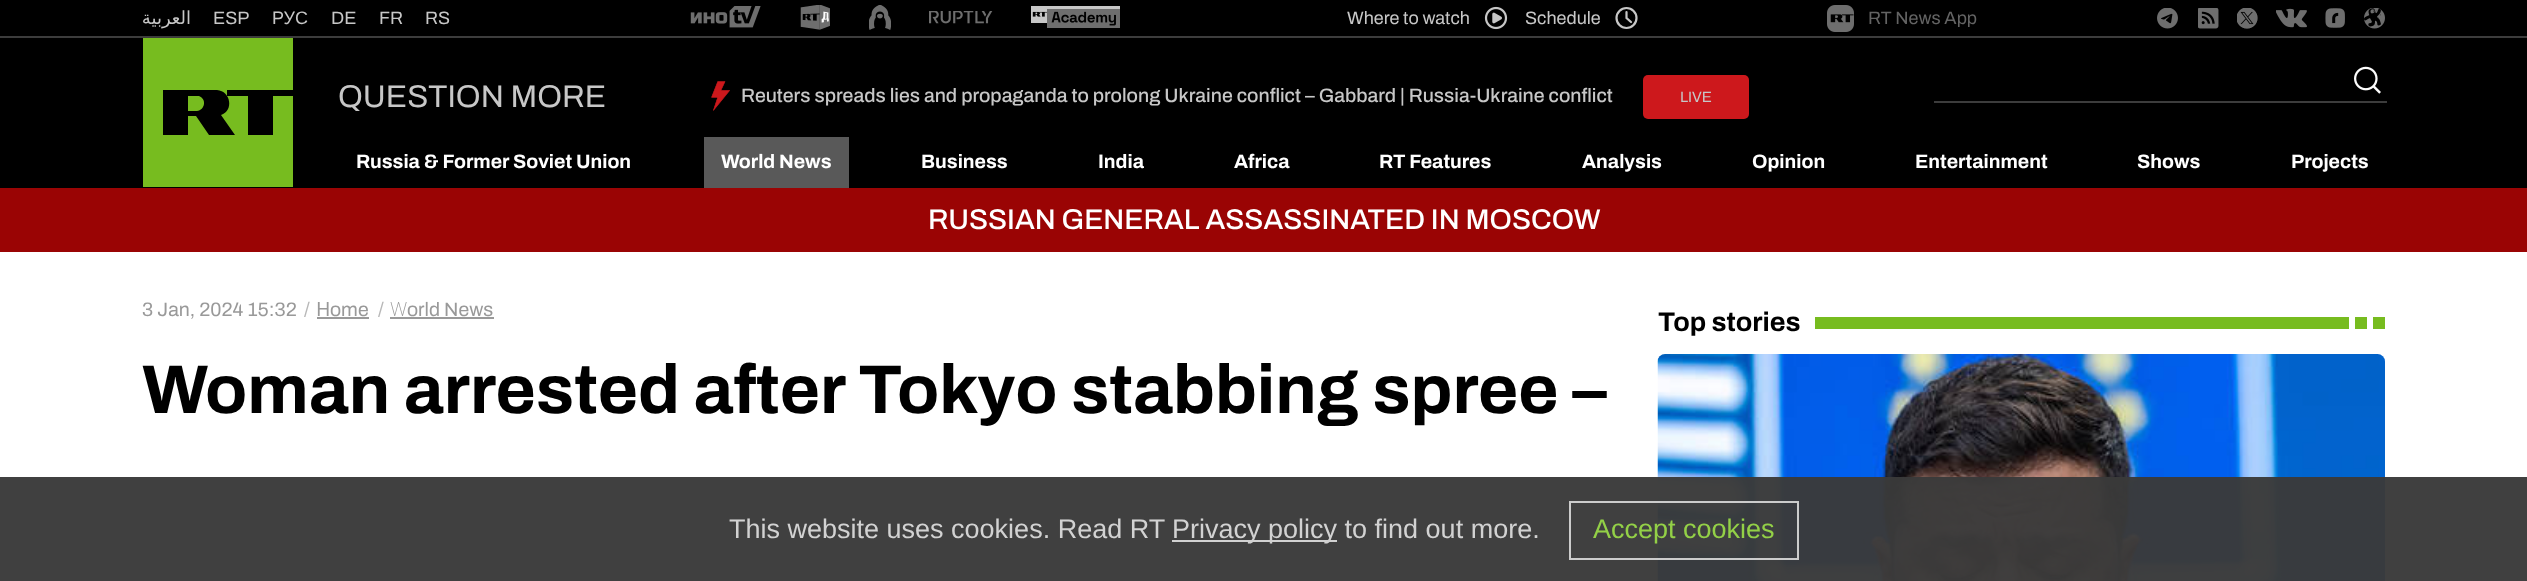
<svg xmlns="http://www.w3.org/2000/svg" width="2527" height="581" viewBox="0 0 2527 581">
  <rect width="100%" height="100%" fill="#fff"/>
  <path d="M0 0h2527v36H0z" fill="#000"/>
  <path d="M0 36h2527v2H0z" fill="#3c3c3c"/>
  <image x="690" y="6" width="71" height="22" href="img/1.png"/>
  <image x="800" y="5" width="30" height="25" href="img/2.png"/>
  <image x="869" y="5" width="22" height="25" href="img/3.png"/>
  <image x="929" y="11" width="64" height="13" href="img/4.png"/>
  <image x="1031" y="6" width="89" height="22" href="img/5.png"/>
  <image x="1484" y="6" width="24" height="24" href="img/6.png"/>
  <circle cx="1626.5" cy="18" r="10" fill="none" stroke="#c7c7c7" stroke-width="2.2"/>
  <path d="M1626.5 12V18L1631 22" fill="none" stroke="#c7c7c7" stroke-width="2.2" stroke-linecap="round"/>
  <image x="1827" y="5" width="27" height="27" href="img/7.png"/>
  <image x="2157" y="8" width="21" height="21" href="img/8.png"/>
  <image x="2198" y="8" width="21" height="21" href="img/9.png"/>
  <image x="2237" y="8" width="21" height="21" href="img/10.png"/>
  <image x="2276" y="8" width="31" height="20" href="img/11.png"/>
  <image x="2325" y="8" width="20" height="20" href="img/12.png"/>
  <image x="2364" y="8" width="21" height="21" href="img/13.png"/>
  <path d="M0 38h2527v150H0z" fill="#000"/>
  <path d="M143 38h150v149H143z" fill="#77bc1f"/>
  <path d="M217 90C231 91 234 111 221 115L235 135H209L196 116H188V135H163V90ZM197 111C205 110 207 99 199 96H188V111Z" fill="#000"/>
  <path d="M227 90V96H248V135H273V96H293V90Z" fill="#000"/>
  <image x="711" y="81" width="19" height="30" href="img/14.png"/>
  <rect x="1643" y="75" width="106" height="44" rx="5" fill="#cd181c"/>
  <image x="2354" y="66" width="27" height="28" href="img/15.png"/>
  <path d="M1934 101h453v2H1934z" fill="#3c3c3c"/>
  <path d="M704 137h145v51H704z" fill="#595959"/>
  <path d="M0 188h2527v64H0z" fill="#9a0404"/>
  <path d="M317 317h52v2H317z" fill="#999"/>
  <path d="M390 317h104v2H390z" fill="#999"/>
  <path d="M1815 317h570v12H1815z" fill="#77bc1f"/>
  <path d="M2367 317h6v12H2367z" fill="#fff"/>
  <path d="M2349 317h6v12H2349z" fill="#fff"/>
  <image x="1657" y="354" width="728" height="227" href="img/16.png"/>
  <path d="M0 477h2527v104H0z" fill="#3a3a3af7"/>
  <path d="M1172 540h165v2H1172z" fill="#d2d2d2"/>
  <path d="M1570 502h228v57H1570z" fill="none" stroke="#d1d1d1f7" stroke-width="2"/>
  <text x="191" y="24" font-family="DejaVu Sans" font-size="18" direction="rtl" fill="#c7c7c7">العربية</text>
  <text x="213" y="24" font-family="Archivo" font-size="18" fill="#c7c7c7">ESP</text>
  <text x="272" y="24" font-family="Liberation Sans" font-size="18" fill="#c7c7c7">РУС</text>
  <g font-family="Archivo" font-size="18" fill="#c7c7c7">
    <text x="331" y="24">DE</text>
    <text x="379" y="24">FR</text>
    <text x="425" y="24">RS</text>
    <text x="1347" y="24">Where to watch</text>
    <text x="1525" y="24">Schedule</text>
  </g>
  <text x="1868" y="24" font-family="Archivo" font-size="18" fill="#636363">RT News App</text>
  <text x="338" y="107" font-family="Archivo" font-size="31.5" fill="#c7c7c7">QUESTION MORE</text>
  <text x="741" y="102" font-family="Archivo" font-size="19.5" font-weight="500" fill="#c7c7c7">Reuters spreads lies and propaganda to prolong Ukraine conflict – Gabbard | Russia-Ukraine conflict</text>
  <text x="1680" y="102" font-family="Archivo" font-size="15" fill="#c7c7c7">LIVE</text>
  <g font-family="Archivo" font-size="19.5" font-weight="bold" fill="#fff">
    <text x="356" y="168">Russia &amp; Former Soviet Union</text>
    <text x="721" y="168">World News</text>
    <text x="921" y="168">Business</text>
    <text x="1098" y="168">India</text>
    <text x="1234" y="168">Africa</text>
    <text x="1379" y="168">RT Features</text>
    <text x="1582" y="168">Analysis</text>
    <text x="1752" y="168">Opinion</text>
    <text x="1915" y="168">Entertainment</text>
    <text x="2137" y="168">Shows</text>
    <text x="2291" y="168">Projects</text>
  </g>
  <text x="928" y="229" font-family="Archivo" font-size="28.5" font-weight="500" fill="#fff">RUSSIAN GENERAL ASSASSINATED IN MOSCOW</text>
  <text x="142" y="316" font-family="Archivo" font-size="19.5" fill="#999">3 Jan, 2024 15:32</text>
  <text x="304" y="316" font-family="Archivo" font-size="19.5" fill="#b8b8b8">/</text>
  <text x="316" y="316" font-family="Noto Sans" font-size="19.5" fill="#999">H</text>
  <text x="330" y="316" font-family="Archivo" font-size="19.5" fill="#999">ome</text>
  <text x="378" y="316" font-family="Archivo" font-size="19.5" fill="#b8b8b8">/</text>
  <text x="390" y="316" font-family="Noto Sans" font-size="19.5" font-weight="200" fill="#999">W</text>
  <text x="407" y="316" font-family="Archivo" font-size="19.5" fill="#999">orld News</text>
  <text x="142" y="413" font-family="Archivo" font-size="69" font-weight="bold" fill="#000">Woman arrested after Tokyo stabbing spree –</text>
  <text x="1658" y="331" font-family="Archivo" font-size="27" font-weight="bold" fill="#000">Top stories</text>
  <g font-family="Liberation Sans" font-size="27" fill="#d2d2d2">
    <text x="729" y="538">This website uses cookies. Read RT</text>
    <text x="1172" y="538">Privacy policy to find out more.</text>
  </g>
  <text x="1593" y="538" font-family="Liberation Sans" font-size="27" fill="#93d047">Accept cookies</text>
</svg>
